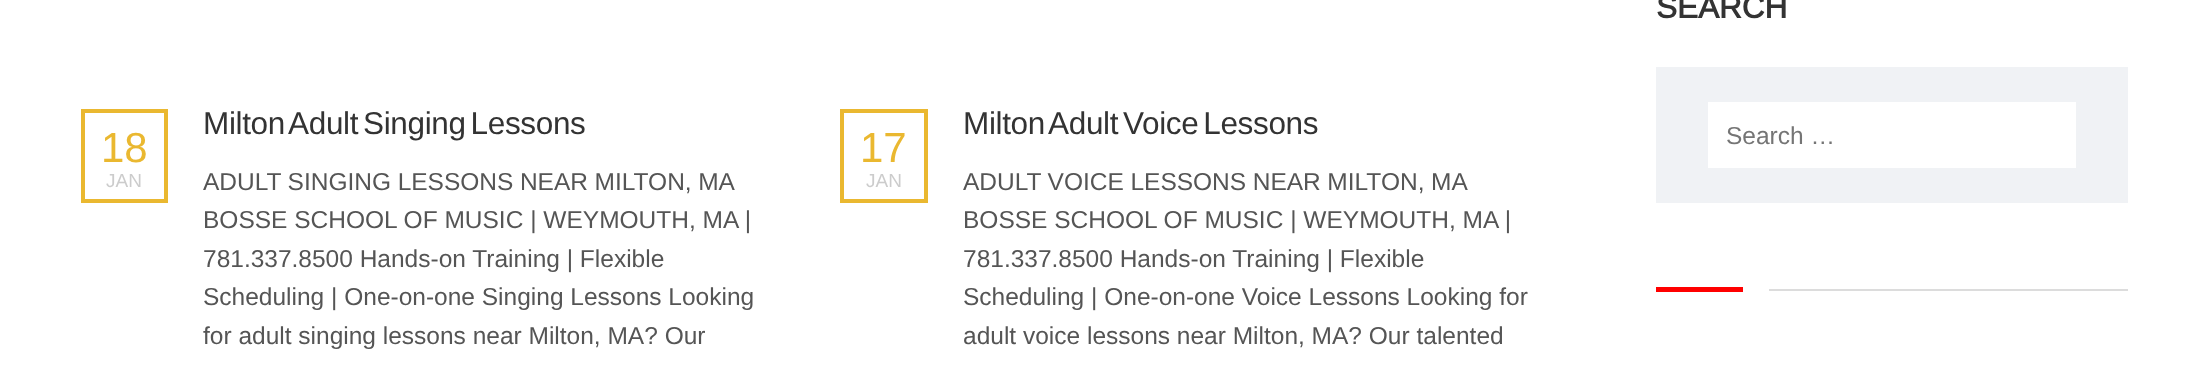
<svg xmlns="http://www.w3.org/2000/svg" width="2207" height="375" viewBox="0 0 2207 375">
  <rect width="100%" height="100%" fill="#fff"/>
  <path d="M1656 67h472v136H1656z" fill="#f0f2f5"/>
  <path d="M1708 102h368v66H1708z" fill="#fff"/>
  <path d="M1656 287h87v5H1656z" fill="#f00"/>
  <path d="M1769 289h359v2H1769z" fill="#dcdcdc"/>
  <path d="M83 111h83v90H83z" fill="none" stroke="#eab830" stroke-width="4"/>
  <path d="M842 111h84v90H842z" fill="none" stroke="#eab830" stroke-width="4"/>
  <text x="1656" y="18" font-family="Arimo" font-size="31.5" font-weight="bold" fill="#333">SEARCH</text>
  <text x="1726" y="144" font-family="Arimo" font-size="24.5" fill="#757575">Search …</text>
  <text x="203" y="134" word-spacing="-3.5" font-family="Arimo" font-size="31.5" letter-spacing="-0.35" fill="#333">Milton Adult Singing Lessons</text>
  <text x="101" y="162" font-family="Arimo" font-size="42" fill="#eab830">18</text>
  <text x="106" y="187" font-family="Arimo" font-size="19" fill="#ccc">JAN</text>
  <g font-family="Arimo" font-size="24.5" fill="#555">
    <text x="203" y="190" word-spacing="-0.25">ADULT SINGING LESSONS NEAR MILTON, MA</text>
    <text x="203" y="228">BOSSE SCHOOL OF MUSIC | WEYMOUTH, MA |</text>
    <text x="203" y="267">781.337.8500 Hands-on Training | Flexible</text>
    <text x="203" y="305">Scheduling | One-on-one Singing Lessons Looking</text>
    <text x="203" y="344">for adult singing lessons near Milton, MA? Our</text>
  </g>
  <text x="963" y="134" word-spacing="-3.5" font-family="Arimo" font-size="31.5" letter-spacing="-0.35" fill="#333">Milton Adult Voice Lessons</text>
  <text x="860" y="162" font-family="Arimo" font-size="42" fill="#eab830">17</text>
  <text x="866" y="187" font-family="Arimo" font-size="19" fill="#ccc">JAN</text>
  <g font-family="Arimo" font-size="24.5" fill="#555">
    <text x="963" y="190" word-spacing="-0.25">ADULT VOICE LESSONS NEAR MILTON, MA</text>
    <text x="963" y="228">BOSSE SCHOOL OF MUSIC | WEYMOUTH, MA |</text>
    <text x="963" y="267">781.337.8500 Hands-on Training | Flexible</text>
    <text x="963" y="305">Scheduling | One-on-one Voice Lessons Looking for</text>
    <text x="963" y="344">adult voice lessons near Milton, MA? Our talented</text>
  </g>
</svg>
